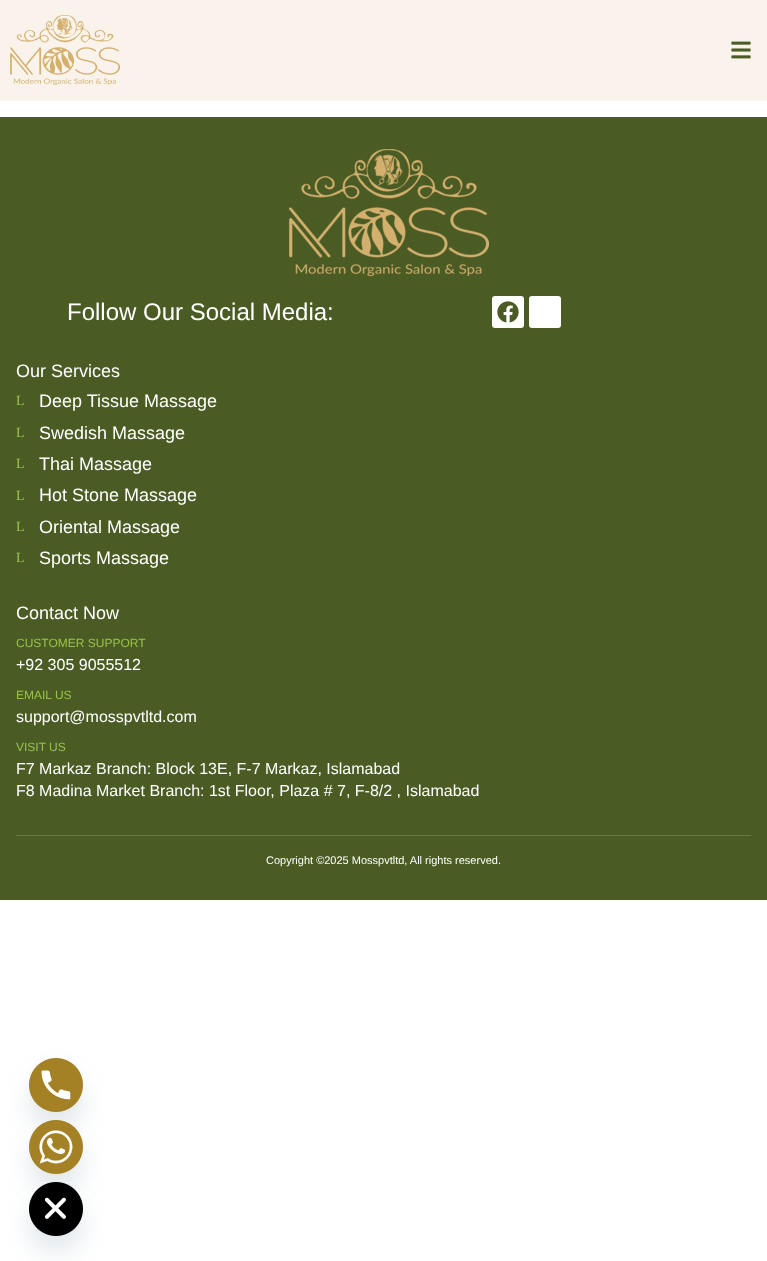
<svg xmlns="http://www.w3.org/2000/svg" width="767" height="1261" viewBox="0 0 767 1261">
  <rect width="100%" height="100%" fill="#fff"/>
  <path d="M0 0h767v100H0z" fill="#f9f3eb"/>
  <path d="M0 100h767v1H0z" fill="#faf5ee"/>
  <image x="10" y="15" width="110" height="70" href="img/1.png"/>
  <image x="731" y="41" width="20" height="18" href="img/2.png"/>
  <path d="M0 117h767v783H0z" fill="#4a5c24"/>
  <image x="289" y="149" width="200" height="127" href="img/3.png"/>
  <rect x="492" y="296" width="32" height="32" rx="3" fill="#fff"/>
  <image x="497" y="301" width="22" height="22" href="img/4.png"/>
  <rect x="529" y="296" width="32" height="32" rx="3" fill="#fff"/>
  <path d="M16 835h735v1H16z" fill="#697849"/>
  <rect x="29" y="1074" width="54" height="54" rx="27" fill="#49687e29" filter="blur(12px)"/>
  <image x="29" y="1058" width="54" height="54" href="img/5.png"/>
  <rect x="29" y="1136" width="54" height="54" rx="27" fill="#49687e29" filter="blur(12px)"/>
  <image x="29" y="1120" width="54" height="54" href="img/6.png"/>
  <rect x="29" y="1198" width="54" height="54" rx="27" fill="#49687e29" filter="blur(12px)"/>
  <image x="29" y="1182" width="54" height="54" href="img/7.png"/>
  <text x="67" y="320" font-family="Liberation Sans" font-size="24" fill="#fff">Follow Our Social Media:</text>
  <text x="16" y="377" font-family="Liberation Sans" font-size="18" fill="#fff">Our Services</text>
  <text x="16" y="405" font-family="Liberation Serif" font-size="14" fill="#99c24a">L</text>
  <text x="39" y="407" font-family="Liberation Sans" font-size="18" fill="#fff">Deep Tissue Massage</text>
  <text x="16" y="437" font-family="Liberation Serif" font-size="14" fill="#99c24a">L</text>
  <text x="39" y="439" font-family="Liberation Sans" font-size="18" fill="#fff">Swedish Massage</text>
  <text x="16" y="468" font-family="Liberation Serif" font-size="14" fill="#99c24a">L</text>
  <text x="39" y="470" font-family="Liberation Sans" font-size="18" fill="#fff">Thai Massage</text>
  <text x="16" y="500" font-family="Liberation Serif" font-size="14" fill="#99c24a">L</text>
  <text x="39" y="501" font-family="Liberation Sans" font-size="18" fill="#fff">Hot Stone Massage</text>
  <text x="16" y="531" font-family="Liberation Serif" font-size="14" fill="#99c24a">L</text>
  <text x="39" y="533" font-family="Liberation Sans" font-size="18" fill="#fff">Oriental Massage</text>
  <text x="16" y="562" font-family="Liberation Serif" font-size="14" fill="#99c24a">L</text>
  <g font-family="Liberation Sans" font-size="18" fill="#fff">
    <text x="39" y="564">Sports Massage</text>
    <text x="16" y="619">Contact Now</text>
  </g>
  <text x="16" y="647" font-family="Liberation Sans" font-size="12" fill="#99c24a">CUSTOMER SUPPORT</text>
  <text x="16" y="670" font-family="Liberation Sans" font-size="16" fill="#fff">+92 305 9055512</text>
  <text x="16" y="699" font-family="Liberation Sans" font-size="12" fill="#99c24a">EMAIL US</text>
  <text x="16" y="722" font-family="Liberation Sans" font-size="16" fill="#fff">support@mosspvtltd.com</text>
  <text x="16" y="751" font-family="Liberation Sans" font-size="12" fill="#99c24a">VISIT US</text>
  <g font-family="Liberation Sans" font-size="16" fill="#fff">
    <text x="16" y="774">F7 Markaz Branch: Block 13E, F-7 Markaz, Islamabad</text>
    <text x="16" y="796">F8 Madina Market Branch: 1st Floor, Plaza # 7, F-8/2 , Islamabad</text>
  </g>
  <text x="266" y="864" font-family="Liberation Sans" font-size="11" fill="#fff">Copyright ©2025 Mosspvtltd, All rights reserved.</text>
</svg>
